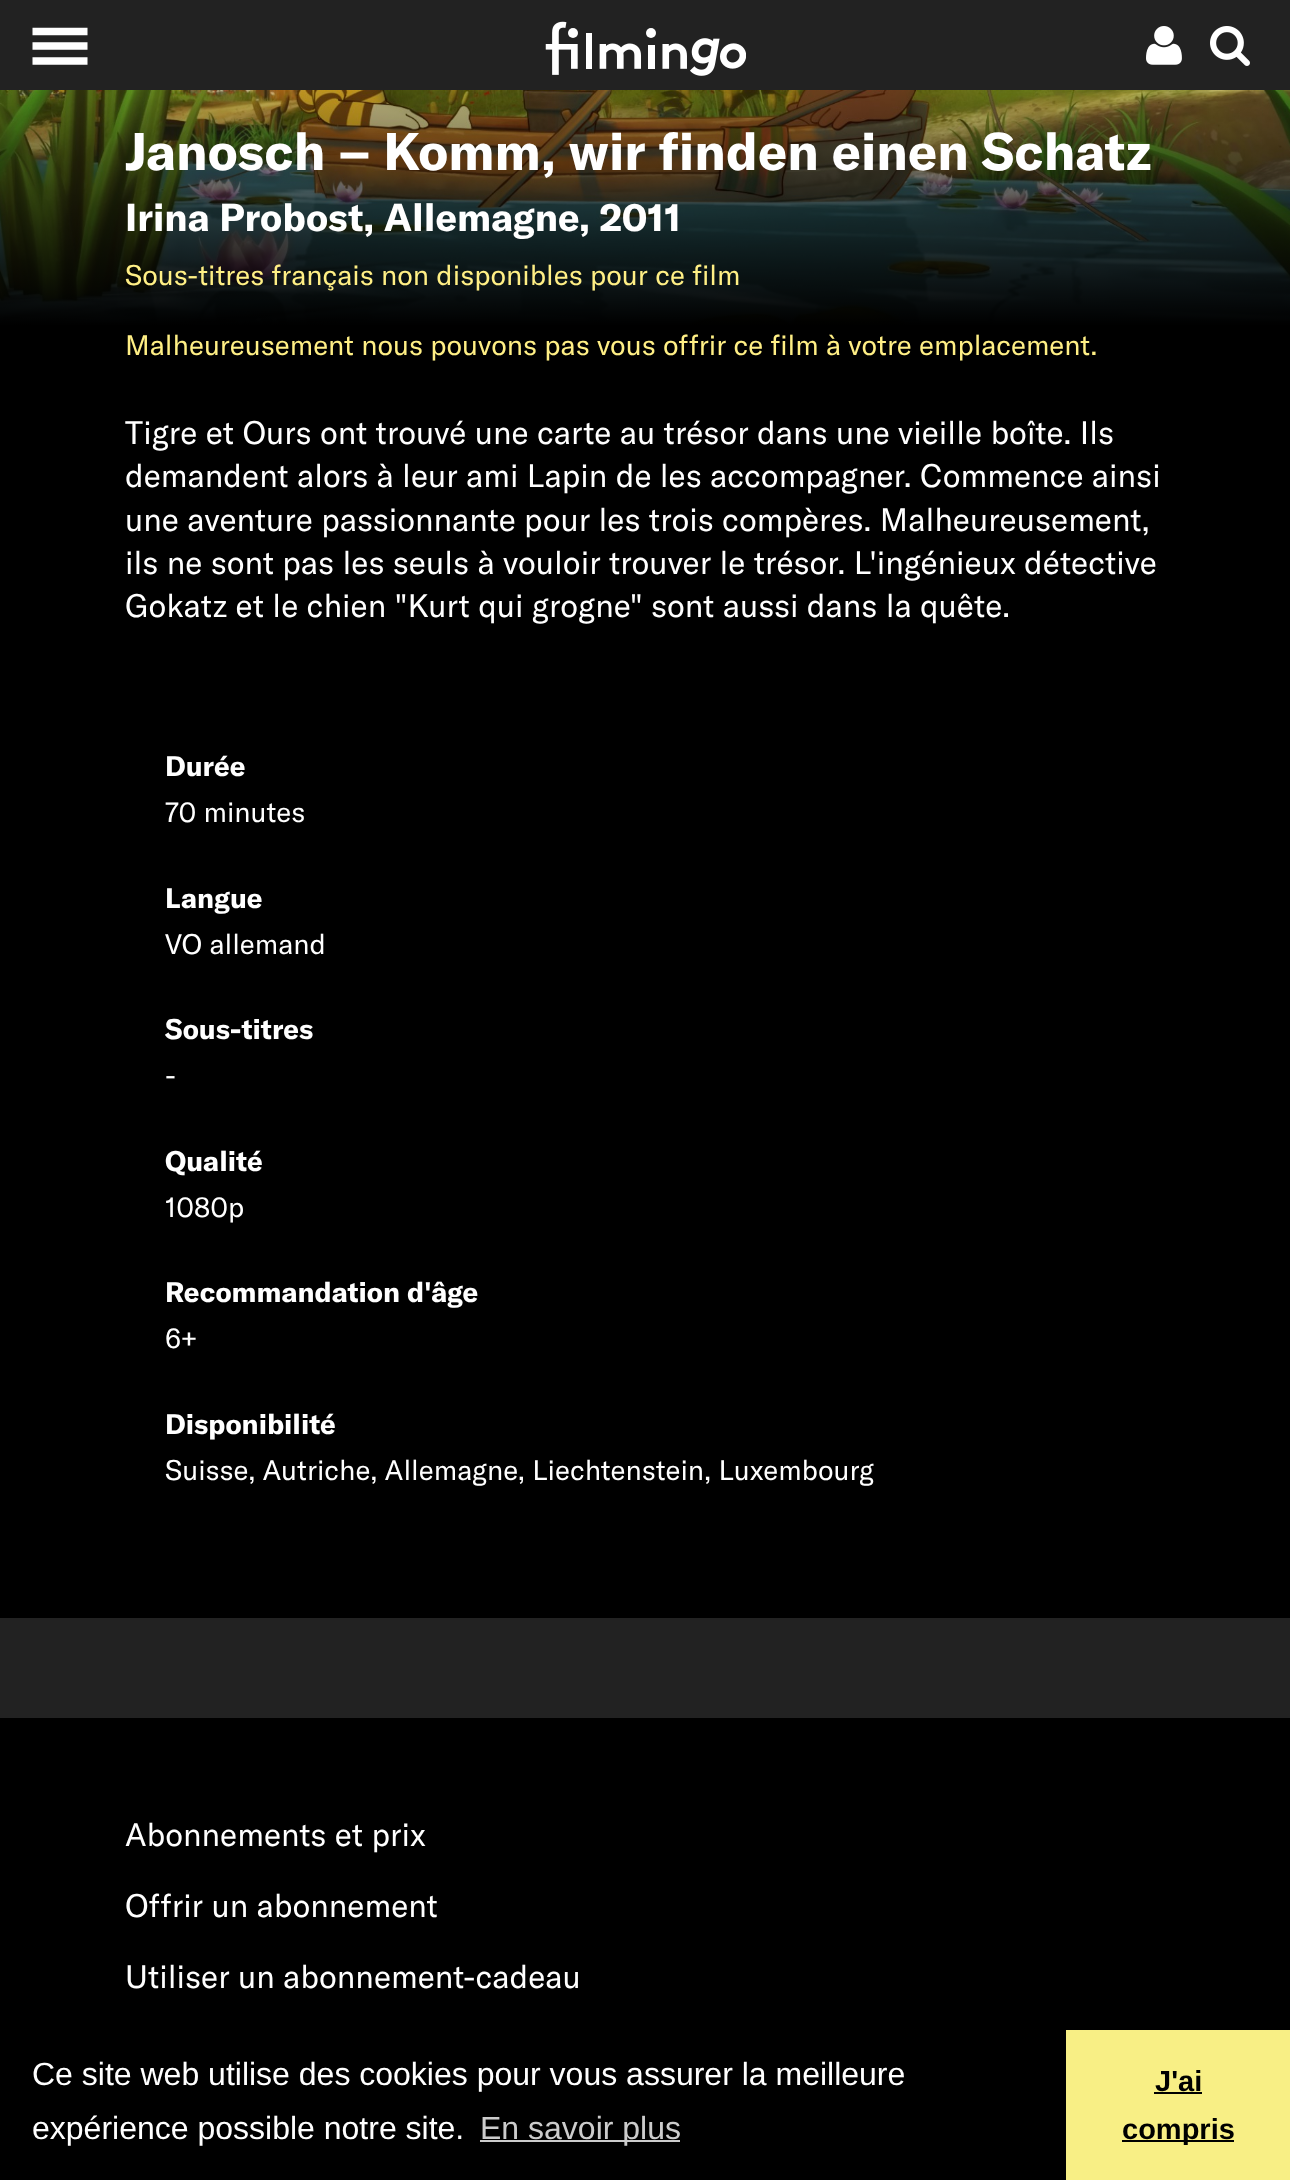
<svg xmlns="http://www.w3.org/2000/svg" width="1290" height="2180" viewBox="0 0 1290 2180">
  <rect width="100%" height="100%" fill="#222"/>
  <path d="M32.5 31.5H87.5M32.5 46H87.5M32.5 61H87.5" fill="none" stroke="#fff" stroke-width="7.3"/>
  <circle cx="573" cy="33" r="5" fill="#fff"/>
  <circle cx="651" cy="33" r="5" fill="#fff"/>
  <image x="545" y="21" width="201" height="55" href="img/1.png"/>
  <image x="1146" y="26" width="36" height="39" href="img/2.png"/>
  <image x="1210" y="26" width="40" height="40" href="img/3.png"/>
  <image x="0" y="90" width="1290" height="236" href="img/4.png"/>
  <path d="M0 326h1290v1292H0z" fill="#000"/>
  <path d="M0 1718h1290v312H0z" fill="#000"/>
  <path d="M0 2030h1066v150H0z" fill="#000"/>
  <path d="M480 2140h200v2H480z" fill="#ccc"/>
  <path d="M1066 2030h224v150H1066z" fill="#f8ef85"/>
  <path d="M1154 2092h48v2H1154z" fill="#000"/>
  <path d="M1122 2140h112v2H1122z" fill="#000"/>
  <text x="125" y="170" font-family="GT America" font-size="52" font-weight="bold" fill="#fff">Janosch – Komm, wir finden einen Schatz</text>
  <g font-family="GT America" font-size="38.4" font-weight="bold" fill="#fff">
    <text x="125" y="231">Irina Probost, Allemagne</text>
    <text x="579" y="231">, 2011</text>
  </g>
  <g font-family="GT America" font-size="28" fill="#ffef85">
    <text x="125" y="285">Sous-titres français non disponibles pour ce film</text>
    <text x="125" y="355">Malheureusement nous pouvons pas vous offrir ce film à votre emplacement.</text>
  </g>
  <g font-family="GT America" font-size="32" fill="#fff">
    <text x="125" y="444">Tigre et Ours ont trouvé une carte au trésor dans une vieille boîte. Ils</text>
    <text x="125" y="487">demandent alors à leur ami Lapin de les accompagner. Commence ainsi</text>
    <text x="125" y="531">une aventure passionnante pour les trois compères. Malheureusement,</text>
    <text x="125" y="574">ils ne sont pas les seuls à vouloir trouver le trésor. L'ingénieux détective</text>
    <text x="125" y="617">Gokatz et le chien "Kurt qui grogne" sont aussi dans la quête.</text>
  </g>
  <text x="165" y="776" font-family="GT America" font-size="28" font-weight="bold" fill="#fff">Durée</text>
  <text x="165" y="822" font-family="GT America" font-size="28" fill="#fff">70 minutes</text>
  <text x="165" y="908" font-family="GT America" font-size="28" font-weight="bold" fill="#fff">Langue</text>
  <text x="165" y="954" font-family="GT America" font-size="28" fill="#fff">VO allemand</text>
  <text x="165" y="1039" font-family="GT America" font-size="28" font-weight="bold" fill="#fff">Sous-titres</text>
  <text x="165" y="1085" font-family="GT America" font-size="28" fill="#fff">-</text>
  <text x="165" y="1171" font-family="GT America" font-size="28" font-weight="bold" fill="#fff">Qualité</text>
  <text x="165" y="1217" font-family="GT America" font-size="28" fill="#fff">1080p</text>
  <text x="165" y="1302" font-family="GT America" font-size="28" font-weight="bold" fill="#fff">Recommandation d'âge</text>
  <text x="165" y="1348" font-family="GT America" font-size="28" fill="#fff">6+</text>
  <text x="165" y="1434" font-family="GT America" font-size="28" font-weight="bold" fill="#fff">Disponibilité</text>
  <text x="165" y="1480" font-family="GT America" font-size="28" fill="#fff">Suisse, Autriche, Allemagne, Liechtenstein, Luxembourg</text>
  <g font-family="GT America" font-size="32" fill="#fff">
    <text x="125" y="1846">Abonnements et prix</text>
    <text x="125" y="1917">Offrir un abonnement</text>
    <text x="125" y="1988">Utiliser un abonnement-cadeau</text>
  </g>
  <g font-family="Liberation Sans" font-size="32" fill="#fff">
    <text x="32" y="2085">Ce site web utilise des cookies pour vous assurer la meilleure</text>
    <text x="32" y="2139">expérience possible notre site.</text>
  </g>
  <text x="480" y="2139" font-family="Liberation Sans" font-size="32" fill="#ccc">En savoir plus</text>
  <g font-family="Liberation Sans" font-size="29" font-weight="bold" fill="#000">
    <text x="1155" y="2091">J'ai</text>
    <text x="1122" y="2139">compris</text>
  </g>
</svg>
